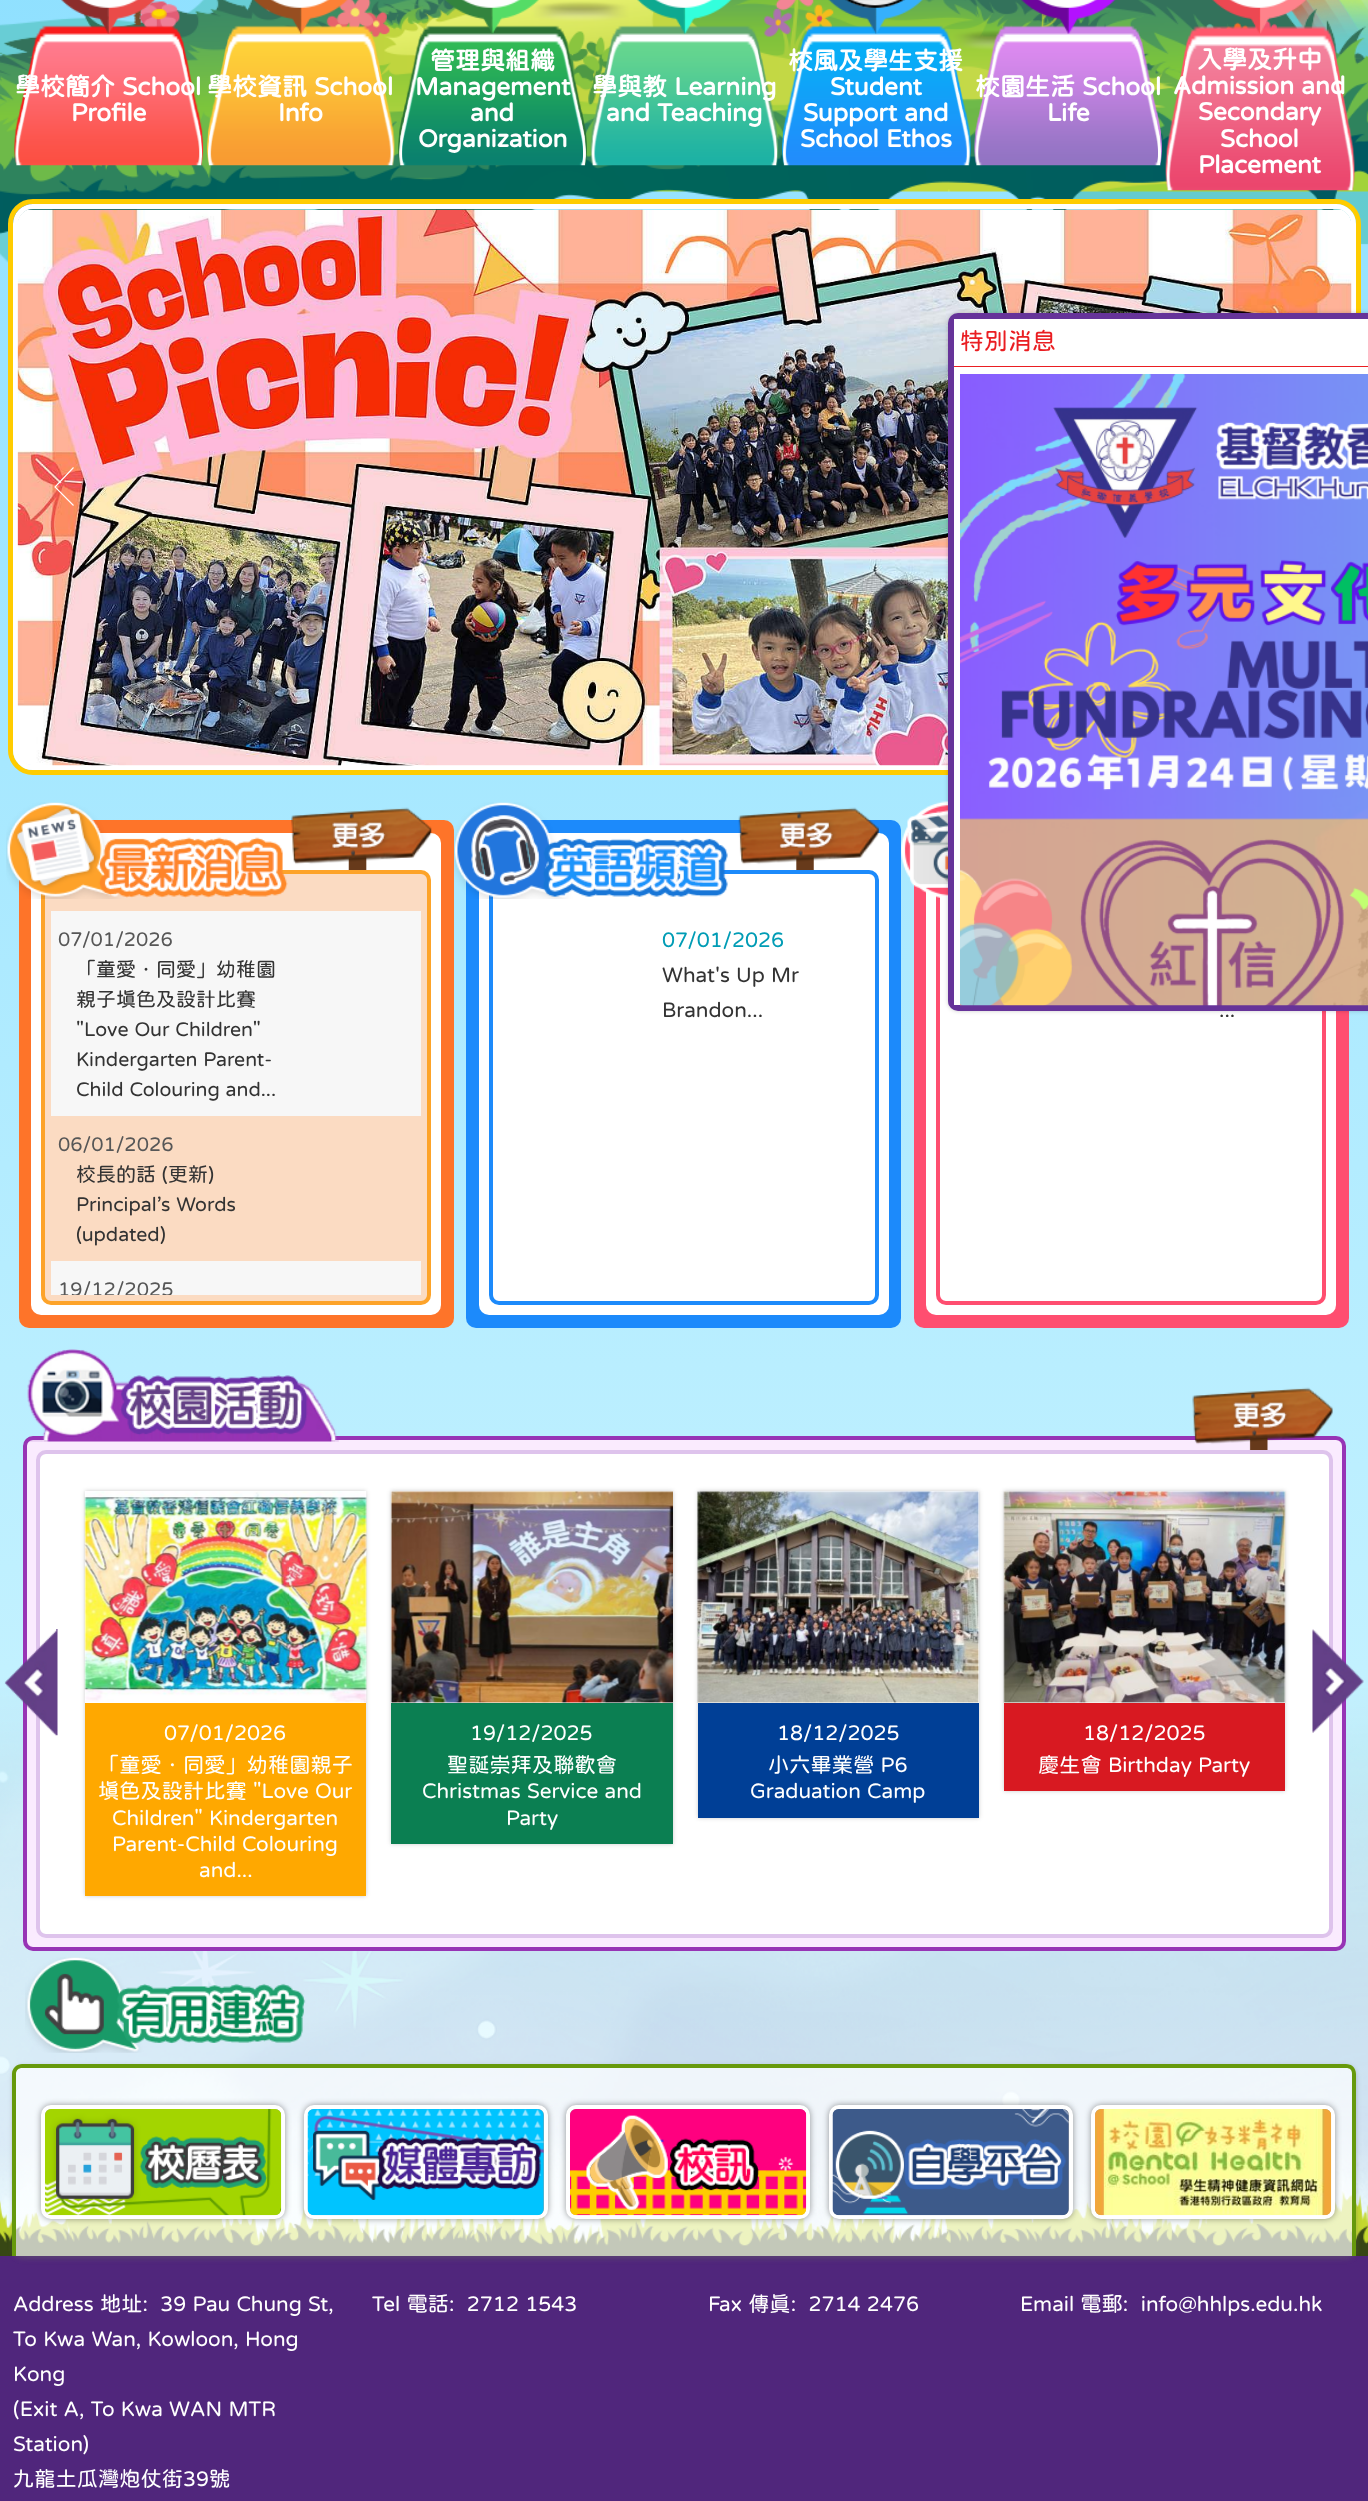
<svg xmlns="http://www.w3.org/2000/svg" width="1368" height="2501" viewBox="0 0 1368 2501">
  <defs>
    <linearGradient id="g1" gradientUnits="userSpaceOnUse" x1="684" y1="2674" x2="684" y2="-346"><stop offset="0" stop-color="#fff"/><stop offset="0.3" stop-color="#c5f2ff"/><stop offset="1" stop-color="#86ddff"/></linearGradient>
    <clipPath id="clip1"><path d="M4 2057H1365V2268H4ZM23 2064H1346C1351.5 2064 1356 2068.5 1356 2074V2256H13V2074C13 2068.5 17.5 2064 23 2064Z" clip-rule="evenodd"/></clipPath>
    <clipPath id="clip2"><path d="M51 911h370v384H51z"/></clipPath>
  </defs>
  <rect width="100%" height="100%" fill="#fff"/>
  <path d="M0 0h1368v2245H0z" fill="url(#g1)"/>
  <image x="0" y="0" width="1368" height="263" href="img/1.png"/>
  <image x="14" y="25" width="190" height="141" href="img/2.png"/>
  <image x="61" y="0" width="95" height="34" href="img/3.png"/>
  <image x="206" y="25" width="189" height="141" href="img/4.png"/>
  <image x="253" y="0" width="95" height="34" href="img/5.png"/>
  <image x="398" y="25" width="189" height="141" href="img/6.png"/>
  <image x="445" y="0" width="94" height="34" href="img/7.png"/>
  <image x="590" y="25" width="189" height="141" href="img/8.png"/>
  <image x="637" y="0" width="95" height="34" href="img/9.png"/>
  <image x="782" y="25" width="189" height="141" href="img/10.png"/>
  <image x="828" y="0" width="95" height="34" href="img/11.png"/>
  <image x="974" y="25" width="188" height="141" href="img/12.png"/>
  <image x="1021" y="0" width="95" height="34" href="img/13.png"/>
  <image x="1165" y="26" width="190" height="165" href="img/14.png"/>
  <image x="1212" y="0" width="95" height="34" href="img/15.png"/>
  <rect x="10.5" y="201.5" width="1348" height="571" rx="22.5" fill="none" stroke="#fc0" stroke-width="5"/>
  <rect x="15.5" y="206.5" width="1338" height="561" rx="17.5" fill="none" stroke="#fff" stroke-width="5"/>
  <image x="17" y="209" width="1335" height="557" href="img/16.png"/>
  <path d="M73.5 467.5L55 487L73.5 505.5" fill="none" stroke="#fff" stroke-width="1.1"/>
  <rect x="19" y="820" width="435" height="508" rx="10" fill="#fe7429"/>
  <rect x="31" y="833" width="410" height="482" rx="10" fill="#fff"/>
  <rect x="43" y="872" width="386" height="431" rx="8" fill="#fbdbc2" stroke="#fda329" stroke-width="4"/>
  <image x="6" y="802" width="282" height="97" href="img/17.png"/>
  <image x="291" y="807" width="141" height="63" href="img/18.png"/>
  <path d="M51 911h370v205H51z" fill="#f7f7f7"/>
  <path d="M51 1261h370v34H51z" fill="#f7f7f7"/>
  <rect x="466" y="820" width="435" height="508" rx="10" fill="#1c8afb"/>
  <rect x="479" y="833" width="410" height="482" rx="10" fill="#fff"/>
  <rect x="491" y="872" width="386" height="431" rx="8" fill="none" stroke="#1c8afb" stroke-width="4"/>
  <image x="454" y="802" width="274" height="97" href="img/19.png"/>
  <image x="738" y="807" width="141" height="63" href="img/20.png"/>
  <rect x="914" y="820" width="435" height="508" rx="10" fill="#ff4e70"/>
  <rect x="926" y="833" width="410" height="482" rx="10" fill="#fff"/>
  <rect x="938" y="872" width="386" height="431" rx="8" fill="none" stroke="#ff4e70" stroke-width="4"/>
  <image x="901" y="801" width="47" height="97" href="img/21.png"/>
  <image x="0" y="1688" width="1368" height="568" href="img/22.png"/>
  <rect x="25" y="1438" width="1319" height="511" rx="8" fill="#faebfe" stroke="#9734b5" stroke-width="4"/>
  <image x="27" y="1349" width="312" height="93" href="img/23.png"/>
  <image x="1192" y="1387" width="141" height="63" href="img/24.png"/>
  <rect x="38" y="1452" width="1293" height="484" rx="8" fill="#fff" stroke="#dec3ec" stroke-width="4"/>
  <image x="4" y="1629" width="54" height="107" href="img/25.png"/>
  <image x="1312" y="1629" width="52" height="104" href="img/26.png"/>
  <path d="M85 1491h281v405H85z" fill="#00000033" filter="blur(2px)"/>
  <path d="M85 1491h281v212H85z" fill="#fff"/>
  <image x="84" y="1491" width="283" height="212" href="img/27.png"/>
  <path d="M85 1703h281v193H85z" fill="#ffa800"/>
  <path d="M391 1491h282v353H391z" fill="#00000033" filter="blur(2px)"/>
  <path d="M391 1491h282v212H391z" fill="#fff"/>
  <image x="390" y="1491" width="283" height="212" href="img/28.png"/>
  <path d="M391 1703h282v141H391z" fill="#0b7f52"/>
  <path d="M698 1491h281v327H698z" fill="#00000033" filter="blur(2px)"/>
  <path d="M698 1491h281v212H698z" fill="#fff"/>
  <image x="697" y="1491" width="283" height="212" href="img/29.png"/>
  <path d="M698 1703h281v115H698z" fill="#003f96"/>
  <path d="M1004 1491h281v300H1004z" fill="#00000033" filter="blur(2px)"/>
  <path d="M1004 1703h281v88H1004z" fill="#d81921"/>
  <path d="M1004 1491h281v212H1004z" fill="#fff"/>
  <image x="1003" y="1491" width="283" height="212" href="img/30.png"/>
  <image x="25" y="1957" width="281" height="96" href="img/31.png"/>
  <path d="M0 2256h1368v245H0z" fill="#50267c"/>
  <g clip-path="url(#clip1)">
    <rect x="13" y="2066" width="1343" height="193" rx="10" fill="#67676766" filter="blur(2.5px)"/>
  </g>
  <path d="M23 2064H1346C1351.5 2064 1356 2068.5 1356 2074V2256H13V2074C13 2068.5 17.5 2064 23 2064Z" fill="#ffffffb3"/>
  <path d="M22 2064H1346C1352 2064 1356 2068 1356 2074V2256H12V2074C12 2068 17 2064 22 2064ZM22 2068H1346C1350 2068 1352 2070 1352 2074V2256H16V2074C16 2070 19 2068 22 2068Z" fill="#66990c" fill-rule="evenodd"/>
  <rect x="41" y="2105" width="244" height="114" rx="10" fill="#00000066" filter="blur(3px)"/>
  <rect x="43" y="2107" width="240" height="110" rx="8" fill="none" stroke="#fff" stroke-width="4"/>
  <image x="45" y="2109" width="237" height="107" href="img/32.png"/>
  <rect x="304" y="2105" width="244" height="114" rx="10" fill="#00000066" filter="blur(3px)"/>
  <rect x="306" y="2107" width="240" height="110" rx="8" fill="none" stroke="#fff" stroke-width="4"/>
  <image x="307" y="2109" width="237" height="107" href="img/33.png"/>
  <rect x="566" y="2105" width="244" height="114" rx="10" fill="#00000066" filter="blur(3px)"/>
  <rect x="568" y="2107" width="240" height="110" rx="8" fill="none" stroke="#fff" stroke-width="4"/>
  <image x="570" y="2109" width="237" height="107" href="img/34.png"/>
  <rect x="829" y="2105" width="244" height="114" rx="10" fill="#00000066" filter="blur(3px)"/>
  <rect x="831" y="2107" width="240" height="110" rx="8" fill="none" stroke="#fff" stroke-width="4"/>
  <image x="832" y="2109" width="237" height="107" href="img/35.png"/>
  <rect x="1091" y="2105" width="244" height="114" rx="10" fill="#00000066" filter="blur(3px)"/>
  <rect x="1093" y="2107" width="240" height="110" rx="8" fill="none" stroke="#fff" stroke-width="4"/>
  <image x="1095" y="2109" width="237" height="107" href="img/36.png"/>
  <rect x="948" y="313" width="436" height="698" rx="10" fill="#00000033" filter="blur(2px)"/>
  <rect x="948" y="313" width="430" height="698" rx="10" fill="#639"/>
  <path d="M954 319h414v686H954z" fill="#fff"/>
  <path d="M954 366h414v1H954z" fill="#ea1e22"/>
  <image x="960" y="374" width="408" height="632" href="img/37.png"/>
  <g font-family="'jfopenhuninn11'" font-size="25" font-weight="bold" fill="#fff">
    <text x="15" y="95">學校簡介 School</text>
    <text x="71" y="121">Profile</text>
    <text x="207" y="95">學校資訊 School</text>
    <text x="278" y="121">Info</text>
    <text x="430" y="69">管理與組織</text>
    <text x="415" y="95">Management</text>
    <text x="470" y="121">and</text>
    <text x="418" y="147">Organization</text>
    <text x="592" y="95">學與教 Learning</text>
    <text x="606" y="121">and Teaching</text>
    <text x="788" y="69">校風及學生支援</text>
    <text x="830" y="95">Student</text>
    <text x="803" y="121">Support and</text>
    <text x="800" y="147">School Ethos</text>
    <text x="975" y="95">校園生活 School</text>
    <text x="1047" y="121">Life</text>
    <text x="1197" y="68">入學及升中</text>
    <text x="1173" y="94">Admission and</text>
    <text x="1198" y="120">Secondary</text>
    <text x="1220" y="147">School</text>
    <text x="1198" y="173">Placement</text>
  </g>
  <text x="58" y="946" font-family="'jfopenhuninn11'" font-size="20" fill="#575757">07/01/2026</text>
  <g font-family="'jfopenhuninn11'" font-size="20" fill="#333">
    <text x="76" y="976">「童愛．同愛」幼稚園</text>
    <text x="76" y="1006">親子填色及設計比賽</text>
    <text x="76" y="1036">"Love Our Children"</text>
    <text x="76" y="1066">Kindergarten Parent-</text>
    <text x="76" y="1096">Child Colouring and...</text>
  </g>
  <text x="58" y="1151" font-family="'jfopenhuninn11'" font-size="20" fill="#575757">06/01/2026</text>
  <g font-family="'jfopenhuninn11'" font-size="20" fill="#333">
    <text x="76" y="1181">校長的話 (更新)</text>
    <text x="76" y="1211">Principal’s Words</text>
    <text x="76" y="1241">(updated)</text>
  </g>
  <g clip-path="url(#clip2)">
    <text x="58" y="1296" font-family="'jfopenhuninn11'" font-size="20" fill="#575757">19/12/2025</text>
  </g>
  <text x="662" y="947" font-family="'jfopenhuninn11'" font-size="21.25" fill="#009cb5">07/01/2026</text>
  <g font-family="'jfopenhuninn11'" font-size="21.25" fill="#333">
    <text x="662" y="982">What's Up Mr</text>
    <text x="662" y="1017">Brandon...</text>
    <text x="1219" y="1017">...</text>
  </g>
  <g font-family="'jfopenhuninn11'" font-size="21.25" fill="#fff">
    <text x="164" y="1740">07/01/2026</text>
    <text x="98" y="1772">「童愛．同愛」幼稚園親子</text>
    <text x="98" y="1798">填色及設計比賽 "Love Our</text>
    <text x="112" y="1825">Children" Kindergarten</text>
    <text x="112" y="1851">Parent-Child Colouring</text>
    <text x="199" y="1877">and...</text>
    <text x="470" y="1740">19/12/2025</text>
    <text x="447" y="1772">聖誕崇拜及聯歡會</text>
    <text x="422" y="1798">Christmas Service and</text>
    <text x="506" y="1825">Party</text>
    <text x="777" y="1740">18/12/2025</text>
    <text x="768" y="1772">小六畢業營 P6</text>
    <text x="750" y="1798">Graduation Camp</text>
    <text x="1083" y="1740">18/12/2025</text>
    <text x="1038" y="1772">慶生會 Birthday Party</text>
    <text x="13" y="2311" xml:space="preserve">Address 地址:  39 Pau Chung St,</text>
    <text x="13" y="2346">To Kwa Wan, Kowloon, Hong</text>
    <text x="13" y="2381">Kong</text>
    <text x="13" y="2416">(Exit A, To Kwa WAN MTR</text>
    <text x="13" y="2451">Station)</text>
    <text x="13" y="2486">九龍土瓜灣炮仗街39號</text>
    <text x="372" y="2311" xml:space="preserve">Tel 電話:  2712 1543</text>
    <text x="708" y="2311" xml:space="preserve">Fax 傳真:  2714 2476</text>
    <text x="1020" y="2311" xml:space="preserve">Email 電郵:  info@hhlps.edu.hk</text>
  </g>
  <text x="960" y="349" font-family="'jfopenhuninn11'" font-size="24" fill="#ea1e22">特別消息</text>
</svg>
